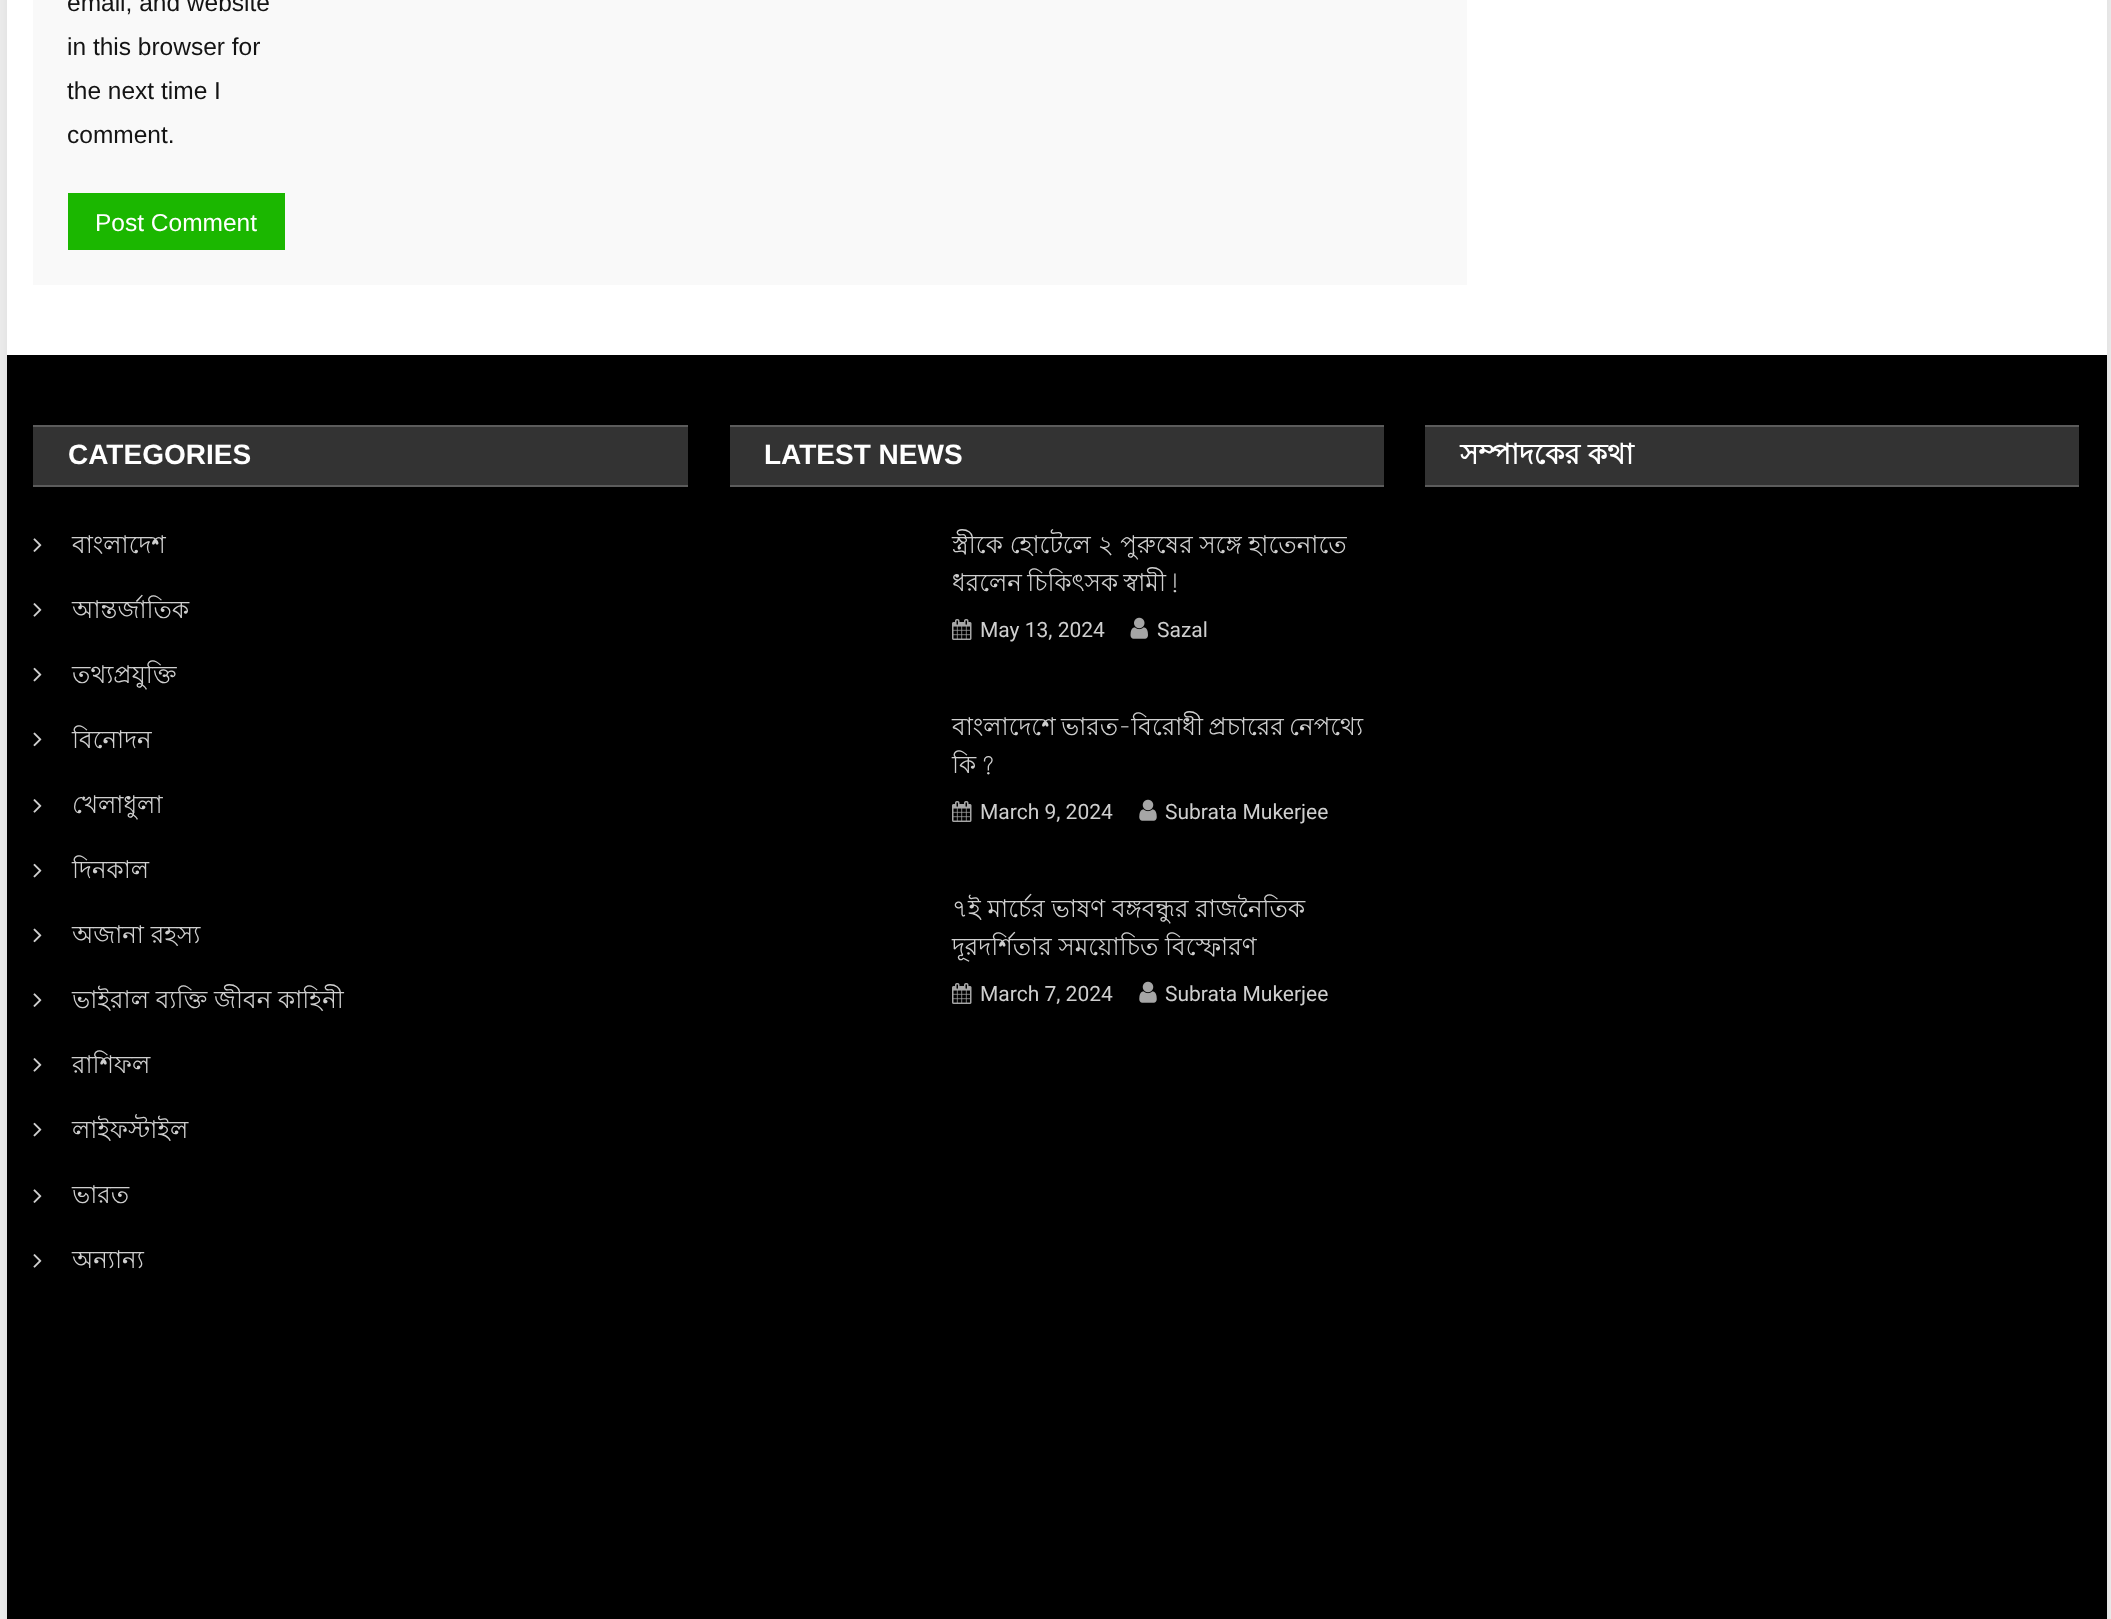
<svg xmlns="http://www.w3.org/2000/svg" width="2111" height="1619" viewBox="0 0 2111 1619">
  <rect width="100%" height="100%" fill="#f2f2f2"/>
  <path d="M7 -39h2100v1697H7z" fill="#0000001a" filter="blur(13px)"/>
  <path d="M7 0h2100v355H7z" fill="#fff"/>
  <path d="M33 0h1434v285H33z" fill="#f9f9f9"/>
  <path d="M68 193h217v57H68z" fill="#1bb700"/>
  <path d="M7 355h2100v1264H7z" fill="#000"/>
  <path d="M33 427h655v58H33z" fill="#333"/>
  <path d="M33 425h655v2H33z" fill="#5c5c5c"/>
  <path d="M33 485h655v2H33z" fill="#5c5c5c"/>
  <image x="33" y="538" width="9" height="14" href="img/1.png"/>
  <image x="33" y="603" width="9" height="14" href="img/2.png"/>
  <image x="33" y="667" width="9" height="15" href="img/3.png"/>
  <image x="33" y="732" width="9" height="15" href="img/4.png"/>
  <image x="33" y="799" width="9" height="14" href="img/2.png"/>
  <image x="33" y="863" width="9" height="15" href="img/3.png"/>
  <image x="33" y="928" width="9" height="15" href="img/4.png"/>
  <image x="33" y="993" width="9" height="14" href="img/1.png"/>
  <image x="33" y="1058" width="9" height="14" href="img/2.png"/>
  <image x="33" y="1122" width="9" height="15" href="img/3.png"/>
  <image x="33" y="1189" width="9" height="14" href="img/1.png"/>
  <image x="33" y="1254" width="9" height="14" href="img/2.png"/>
  <path d="M730 427h654v58H730z" fill="#333"/>
  <path d="M730 425h654v2H730z" fill="#5c5c5c"/>
  <path d="M730 485h654v2H730z" fill="#5c5c5c"/>
  <image x="952" y="619" width="20" height="21" href="img/5.png"/>
  <image x="1130" y="617" width="18" height="22" href="img/6.png"/>
  <image x="952" y="801" width="20" height="21" href="img/5.png"/>
  <image x="1139" y="799" width="18" height="22" href="img/7.png"/>
  <image x="952" y="983" width="20" height="21" href="img/5.png"/>
  <image x="1139" y="981" width="18" height="22" href="img/7.png"/>
  <path d="M1425 427h654v58H1425z" fill="#333"/>
  <path d="M1425 425h654v2H1425z" fill="#5c5c5c"/>
  <path d="M1425 485h654v2H1425z" fill="#5c5c5c"/>
  <g font-family="Liberation Sans" font-size="24.5" fill="#141414">
    <text x="67" y="11">email, and website</text>
    <text x="67" y="55">in this browser for</text>
    <text x="67" y="99">the next time I</text>
    <text x="67" y="143">comment.</text>
  </g>
  <text x="95" y="231" font-family="Liberation Sans" font-size="24.5" fill="#fff">Post Comment</text>
  <text x="68" y="464" font-family="Liberation Sans" font-size="28" font-weight="bold" fill="#fff">CATEGORIES</text>
  <g font-family="Lohit Bengali" font-size="24.5" fill="#cfcfcf">
    <text x="72" y="553">বাংলাদেশ</text>
    <text x="72" y="618">আন্তর্জাতিক</text>
    <text x="72" y="683">তথ্যপ্রযুক্তি</text>
    <text x="72" y="748">বিনোদন</text>
    <text x="72" y="813">খেলাধুলা</text>
    <text x="72" y="878">দিনকাল</text>
    <text x="72" y="943">অজানা রহস্য</text>
    <text x="72" y="1008">ভাইরাল ব্যক্তি জীবন কাহিনী</text>
    <text x="72" y="1073">রাশিফল</text>
    <text x="72" y="1138">লাইফস্টাইল</text>
    <text x="72" y="1203">ভারত</text>
    <text x="72" y="1268">অন্যান্য</text>
  </g>
  <text x="764" y="464" font-family="Liberation Sans" font-size="28" font-weight="bold" fill="#fff">LATEST NEWS</text>
  <g font-family="Lohit Bengali" font-size="24.5" fill="#cfcfcf">
    <text x="952" y="553">স্ত্রীকে হোটেলে ২ পুরুষের সঙ্গে হাতেনাতে</text>
    <text x="952" y="591" word-spacing="-1.5">ধরলেন চিকিৎসক স্বামী!</text>
  </g>
  <g font-family="Roboto" font-size="21" fill="#cfcfcf">
    <text x="980" y="637">May 13, 2024</text>
    <text x="1157" y="637">Sazal</text>
  </g>
  <g font-family="Lohit Bengali" font-size="24.5" fill="#cfcfcf">
    <text x="952" y="735" word-spacing="-1.5">বাংলাদেশে ভারত-বিরোধী প্রচারের নেপথ্যে</text>
    <text x="952" y="773">কি?</text>
  </g>
  <g font-family="Roboto" font-size="21" fill="#cfcfcf">
    <text x="980" y="819">March 9, 2024</text>
    <text x="1165" y="819">Subrata Mukerjee</text>
  </g>
  <g font-family="Lohit Bengali" font-size="24.5" fill="#cfcfcf">
    <text x="952" y="917">৭ই মার্চের ভাষণ বঙ্গবন্ধুর রাজনৈতিক</text>
    <text x="952" y="955">দূরদর্শিতার সময়োচিত বিস্ফোরণ</text>
  </g>
  <g font-family="Roboto" font-size="21" fill="#cfcfcf">
    <text x="980" y="1001">March 7, 2024</text>
    <text x="1165" y="1001">Subrata Mukerjee</text>
  </g>
  <text x="1460" y="464" font-family="Lohit Bengali" font-size="28" font-weight="bold" fill="#fff">সম্পাদকের কথা</text>
</svg>
